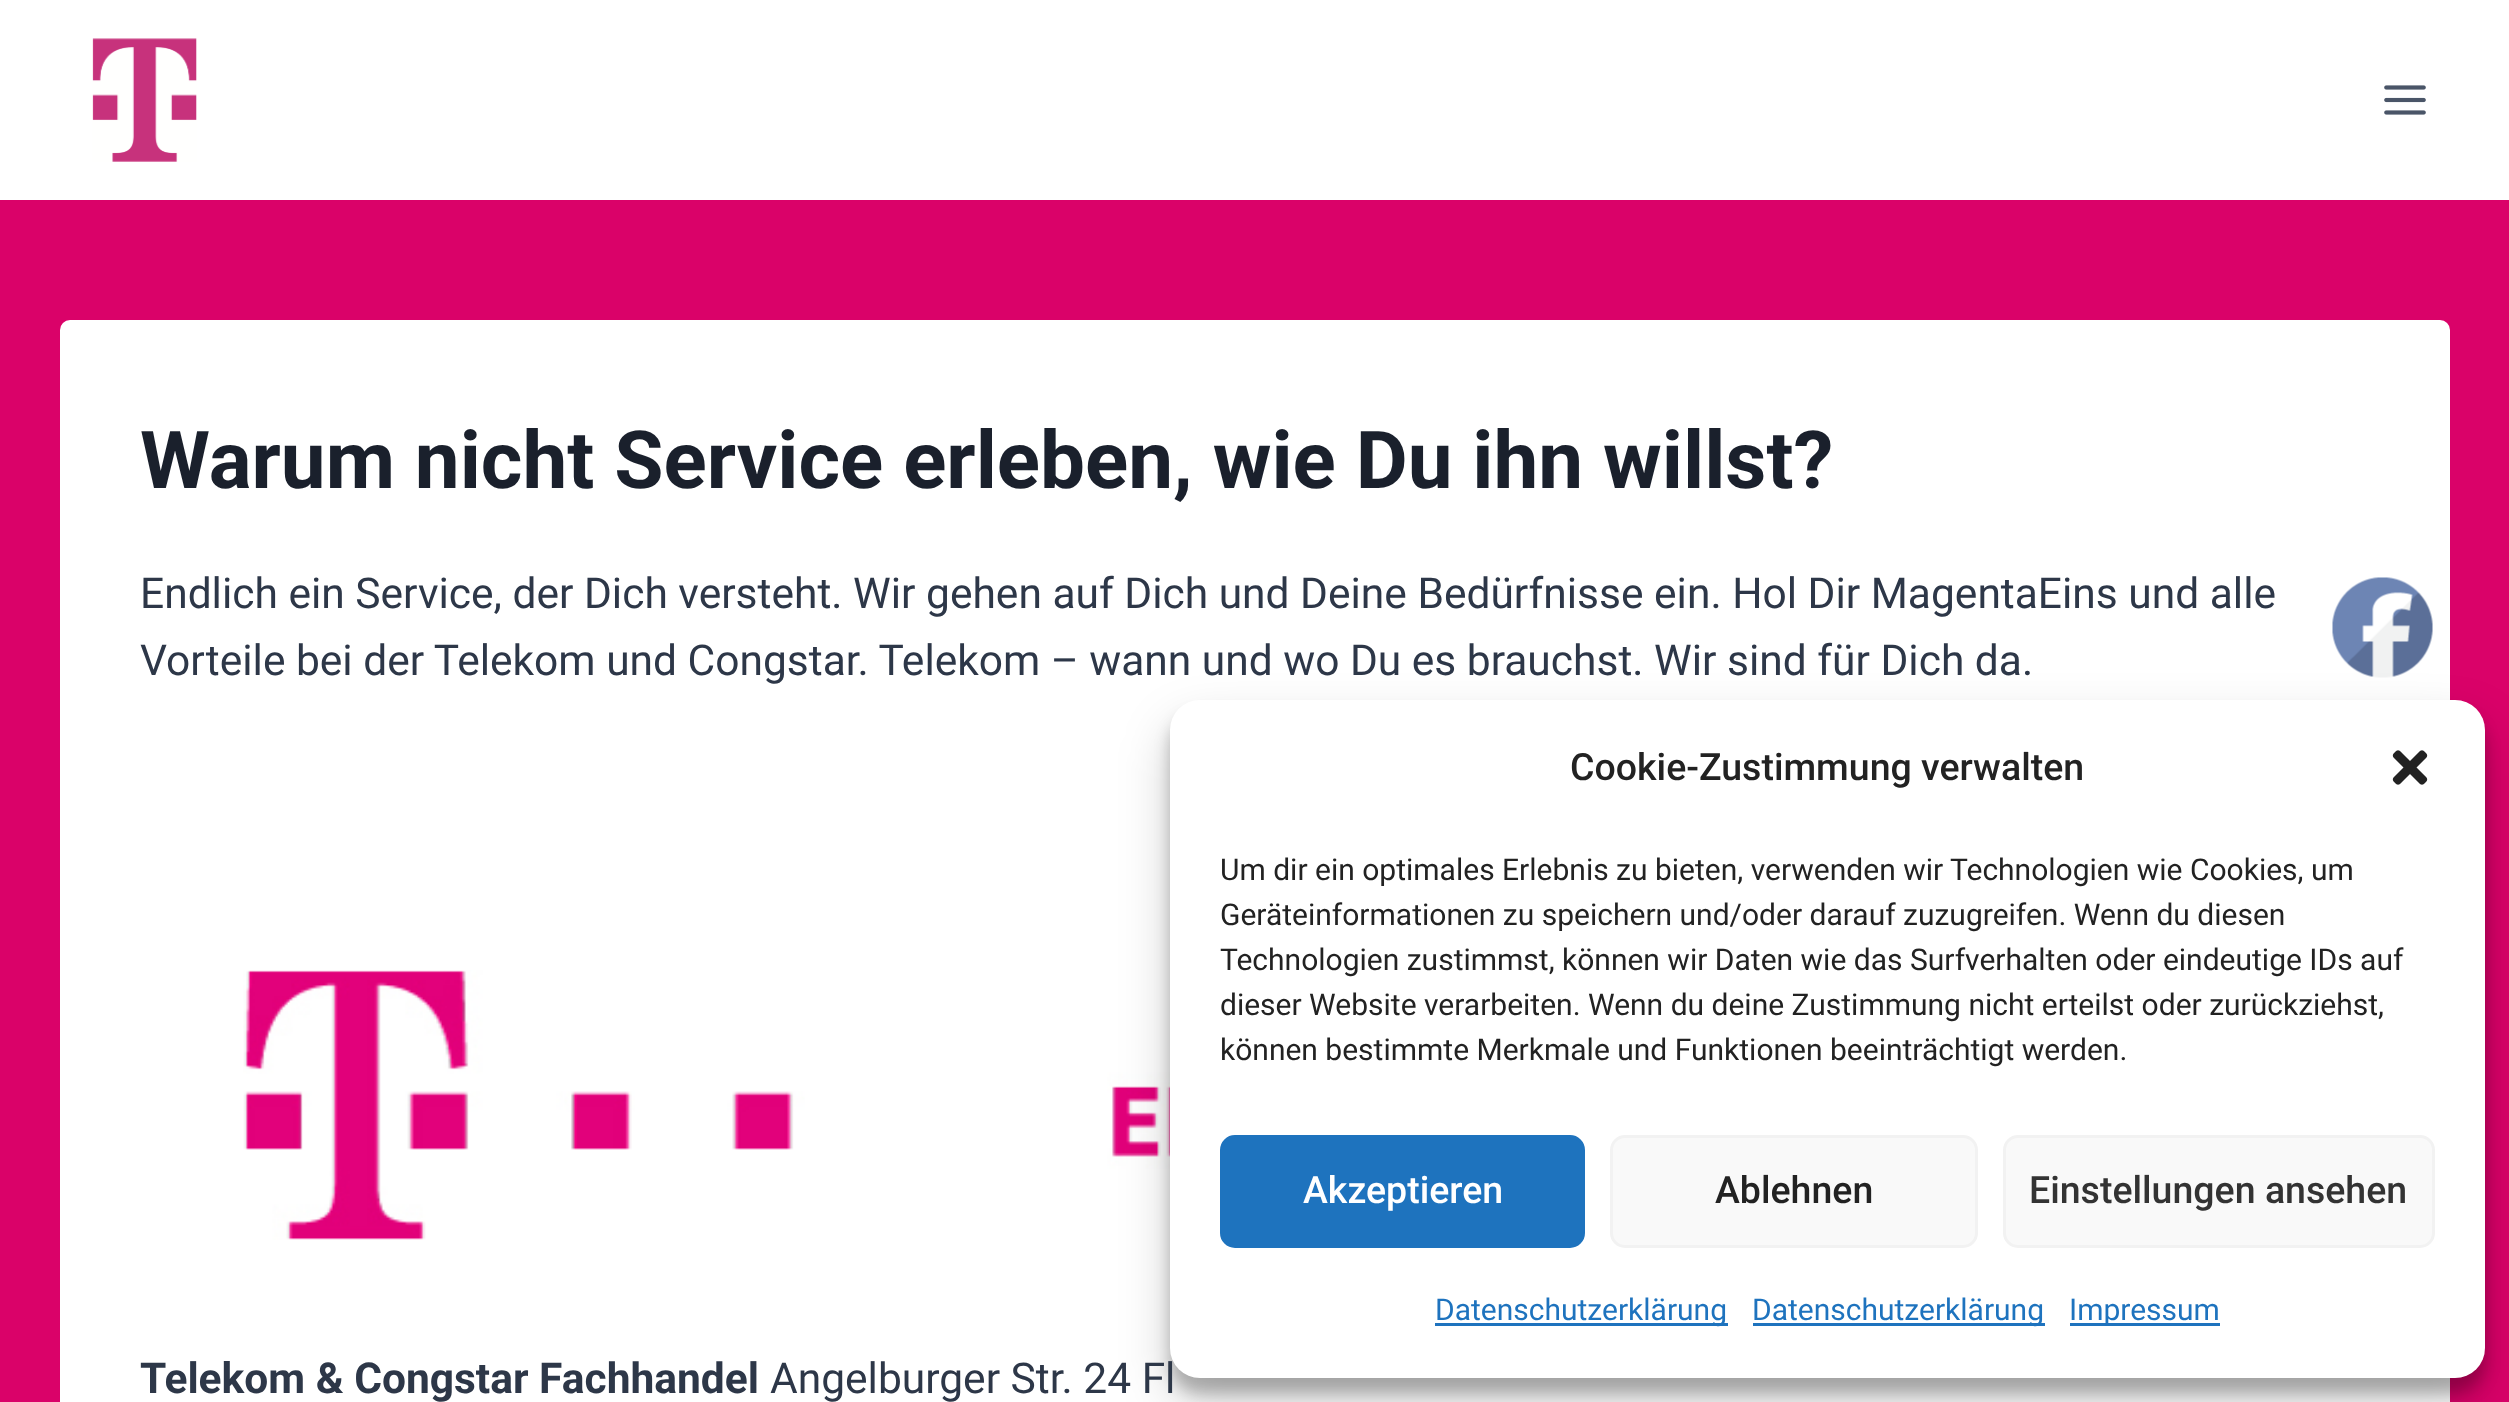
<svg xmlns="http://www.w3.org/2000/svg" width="2509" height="1402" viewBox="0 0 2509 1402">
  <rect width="100%" height="100%" fill="#da0269"/>
  <path d="M0 0h2509v200H0z" fill="#fff"/>
  <image x="92" y="38" width="105" height="124" href="img/1.png"/>
  <image x="2384" y="85" width="42" height="30" href="img/2.png"/>
  <rect x="60" y="320" width="2390" height="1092" rx="10" fill="#fff"/>
  <image x="243" y="970" width="927" height="270" href="img/3.png"/>
  <image x="2332" y="577" width="101" height="101" href="img/4.png"/>
  <rect x="1170" y="715" width="1315" height="678" rx="30" fill="#0000003b" filter="blur(7.5px)"/>
  <rect x="1170" y="725" width="1315" height="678" rx="30" fill="#00000030" filter="blur(25px)"/>
  <text x="140" y="488" font-family="Roboto" font-size="80" font-weight="bold" fill="#1a202c">Warum nicht Service erleben, wie Du ihn willst?</text>
  <g font-family="Roboto" font-size="42.5" fill="#2d3748">
    <text x="140" y="608">Endlich ein Service, der Dich versteht. Wir gehen auf Dich und Deine Bedürfnisse ein. Hol Dir MagentaEins und alle</text>
    <text x="140" y="675">Vorteile bei der Telekom und Congstar. Telekom – wann und wo Du es brauchst. Wir sind für Dich da.</text>
  </g>
  <text x="140" y="1393" font-family="Roboto" font-size="42.5" font-weight="bold" fill="#2d3748">Telekom &amp; Congstar Fachhandel</text>
  <text x="770" y="1393" font-family="Roboto" font-size="42.5" fill="#2d3748">Angelburger Str. 24 Fl</text>
  <rect x="1170" y="700" width="1315" height="678" rx="30" fill="#fff"/>
  <text x="1570" y="780" font-family="Roboto" font-size="37.5" font-weight="500" fill="#222">Cookie-Zustimmung verwalten</text>
  <image x="2392" y="750" width="36" height="35" href="img/5.png"/>
  <g font-family="Roboto" font-size="30" fill="#222">
    <text x="1220" y="880">Um dir ein optimales Erlebnis zu bieten, verwenden wir Technologien wie Cookies, um</text>
    <text x="1220" y="925">Geräteinformationen zu speichern und/oder darauf zuzugreifen. Wenn du diesen</text>
    <text x="1220" y="970">Technologien zustimmst, können wir Daten wie das Surfverhalten oder eindeutige IDs auf</text>
    <text x="1220" y="1015">dieser Website verarbeiten. Wenn du deine Zustimmung nicht erteilst oder zurückziehst,</text>
    <text x="1220" y="1060">können bestimmte Merkmale und Funktionen beeinträchtigt werden.</text>
  </g>
  <rect x="1221.5" y="1136.5" width="362" height="110" rx="13.5" fill="#1e73be" stroke="#1e73be" stroke-width="3"/>
  <text x="1303" y="1203" font-family="Roboto" font-size="37.5" font-weight="500" fill="#fff">Akzeptieren</text>
  <rect x="1611.5" y="1136.5" width="365" height="110" rx="13.5" fill="#f9f9f9" stroke="#f2f2f2" stroke-width="3"/>
  <text x="1715" y="1203" font-family="Roboto" font-size="37.5" font-weight="500" fill="#222">Ablehnen</text>
  <rect x="2004.5" y="1136.5" width="429" height="110" rx="13.5" fill="#f9f9f9" stroke="#f2f2f2" stroke-width="3"/>
  <text x="2029" y="1203" font-family="Roboto" font-size="37.5" font-weight="500" fill="#333">Einstellungen ansehen</text>
  <path d="M1435 1323h293v3H1435z" fill="#1e73be"/>
  <text x="1435" y="1320" font-family="Roboto" font-size="30" fill="#1e73be">Datenschutzerklärung</text>
  <path d="M1753 1323h292v3H1753z" fill="#1e73be"/>
  <text x="1752" y="1320" font-family="Roboto" font-size="30" fill="#1e73be">Datenschutzerklärung</text>
  <path d="M2070 1323h150v3H2070z" fill="#1e73be"/>
  <text x="2069" y="1320" font-family="Roboto" font-size="30" fill="#1e73be">Impressum</text>
</svg>
